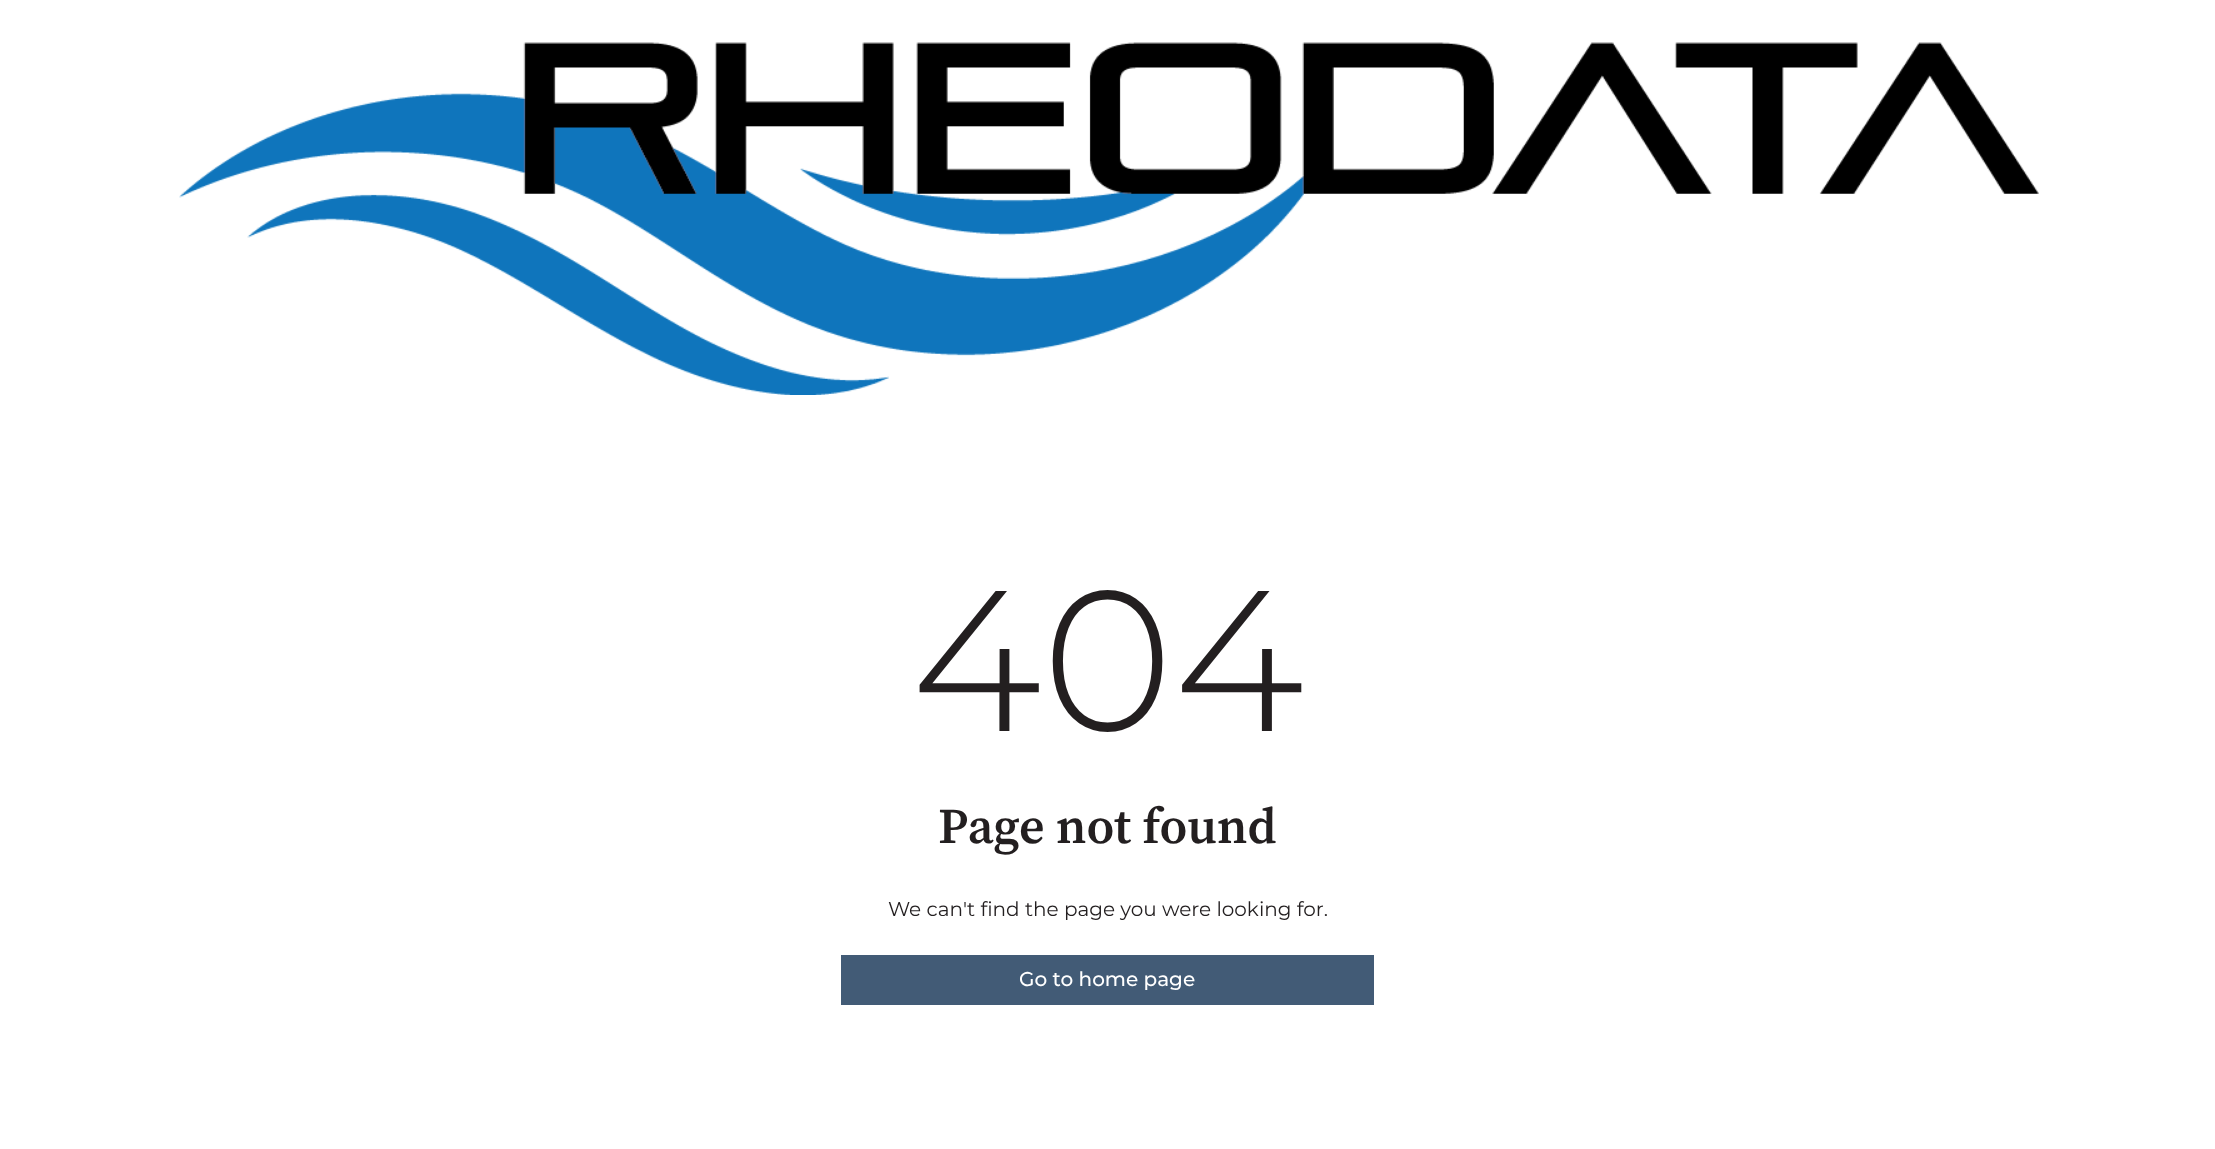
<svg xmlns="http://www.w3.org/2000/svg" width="2215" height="1149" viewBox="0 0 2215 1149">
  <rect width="100%" height="100%" fill="#fff"/>
  <image x="179" y="42" width="1860" height="353" href="img/1.png"/>
  <path d="M841 955h533v50H841z" fill="#425b76"/>
  <text x="911" y="731" font-family="Montserrat" font-size="200" font-weight="300" fill="#231f20">404</text>
  <text x="938" y="843" font-family="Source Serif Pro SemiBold" font-size="50" font-weight="600" fill="#231f20">Page not found</text>
  <text x="888" y="916" font-family="Montserrat" font-size="20" fill="#231f20">We can't find the page you were looking for.</text>
  <text x="1019" y="986" font-family="Montserrat" font-size="20" font-weight="500" fill="#fff">Go to home page</text>
</svg>
